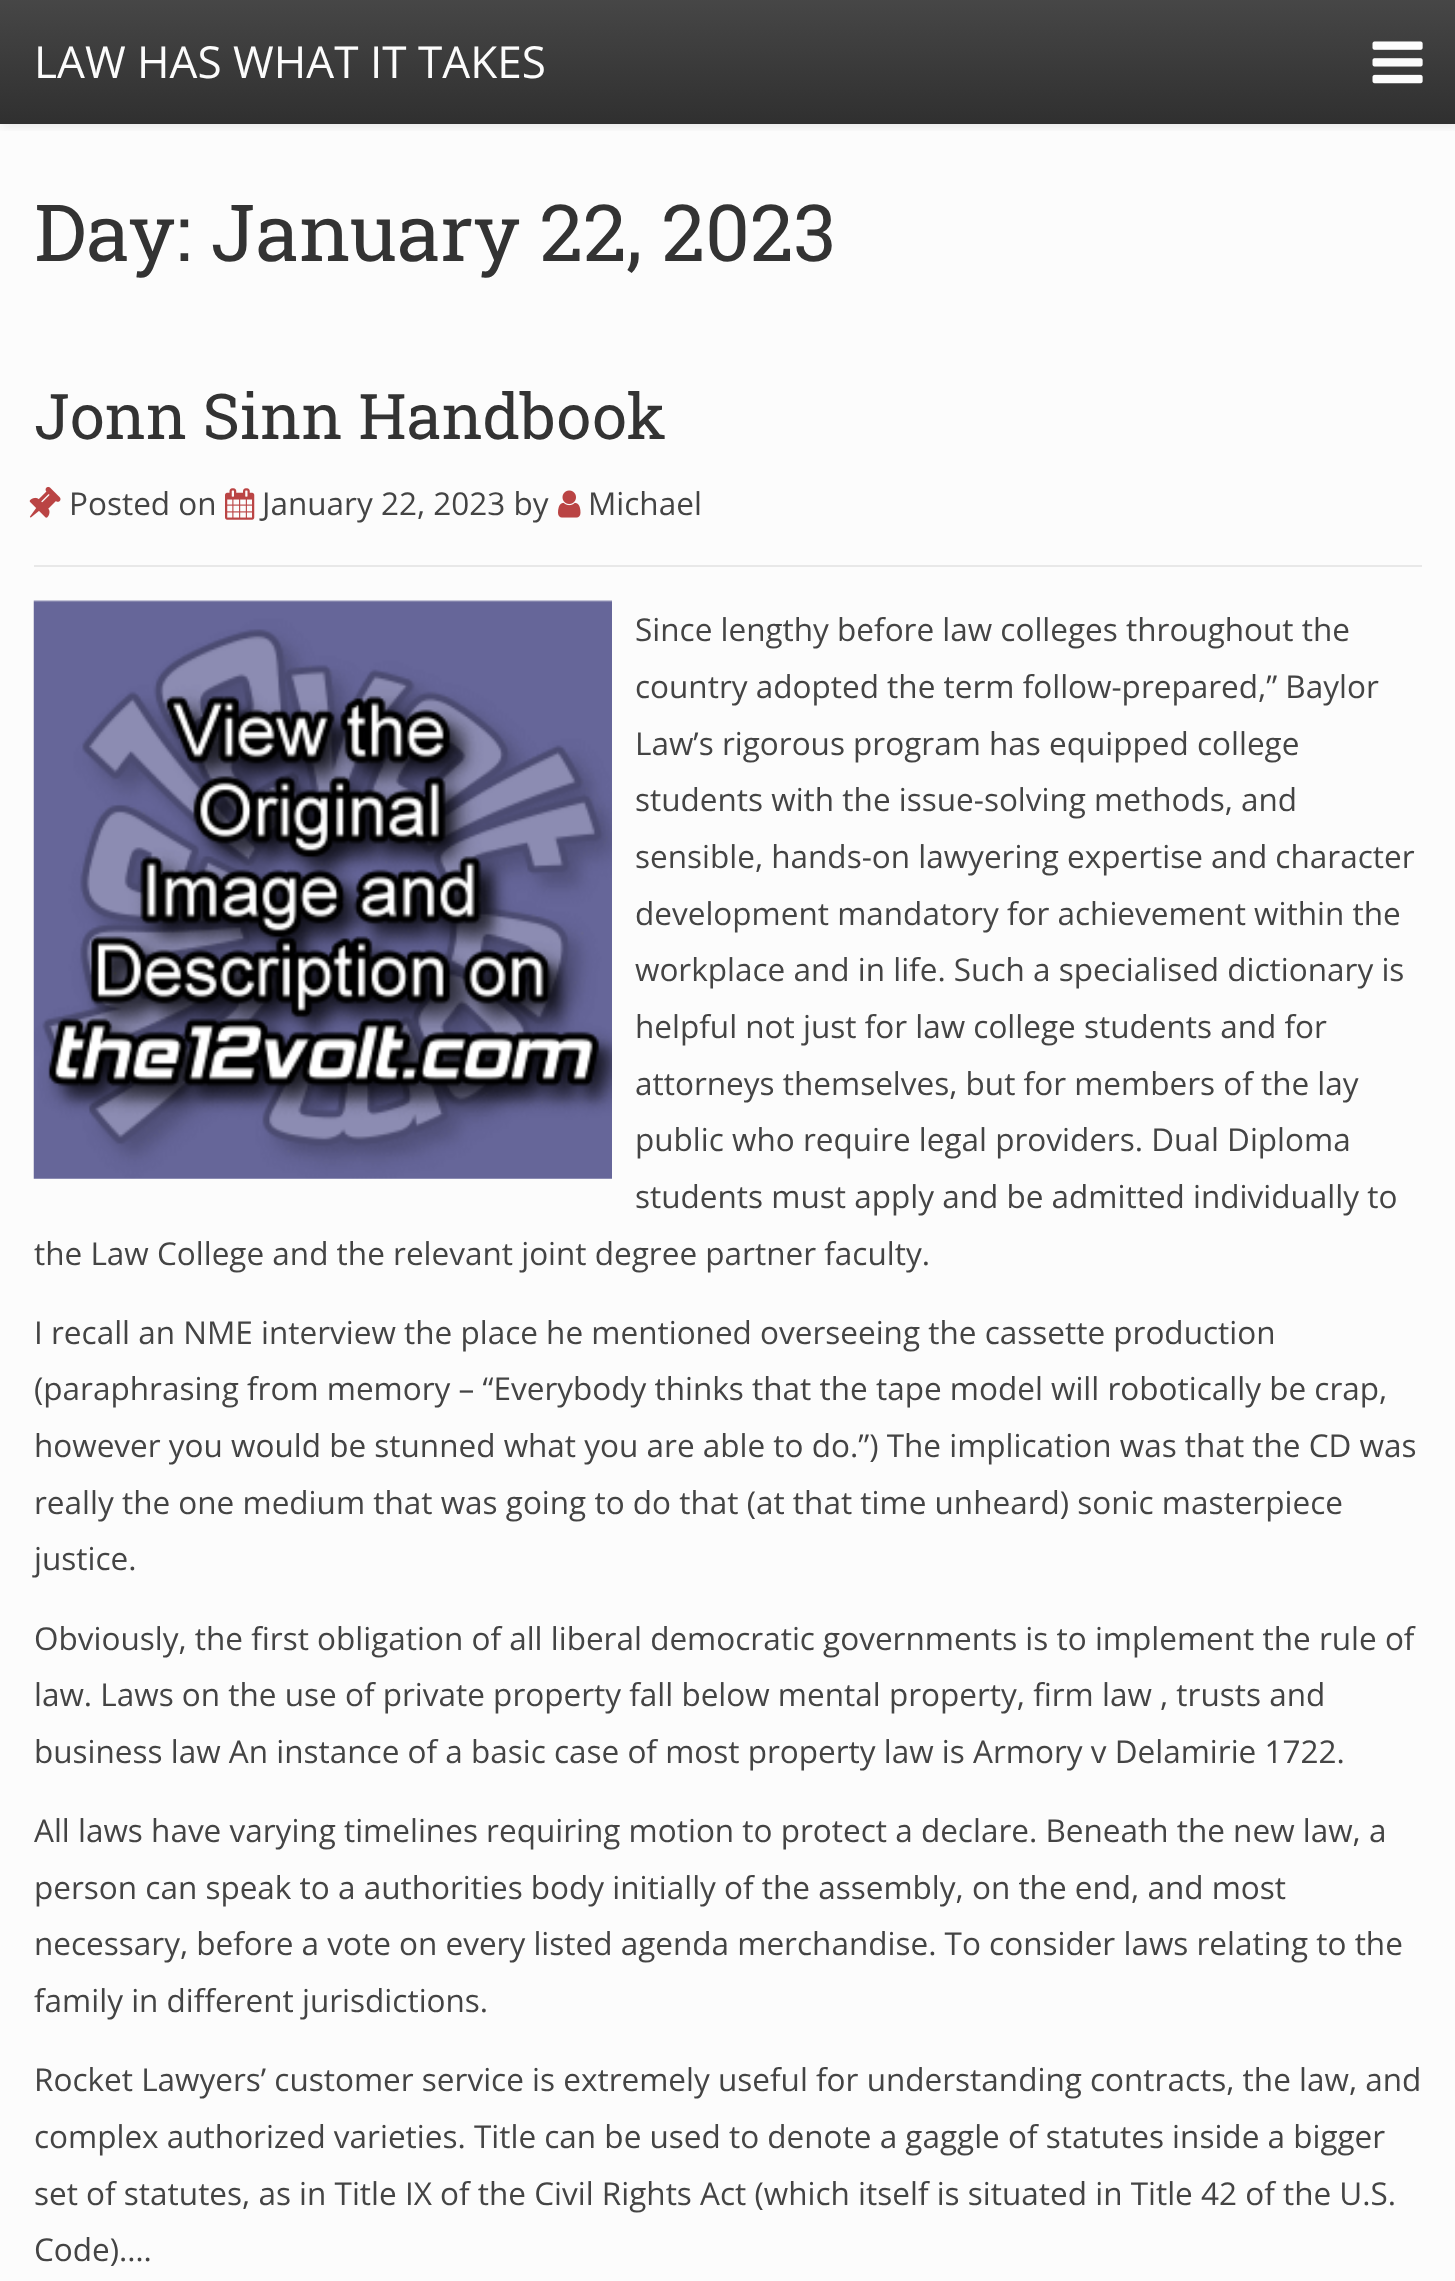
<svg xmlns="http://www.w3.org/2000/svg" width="1455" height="2281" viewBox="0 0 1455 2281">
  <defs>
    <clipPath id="clip1"><path d="M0 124h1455v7H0z"/></clipPath>
    <linearGradient id="g1" gradientUnits="userSpaceOnUse" x1="728" y1="0" x2="728" y2="124"><stop offset="0" stop-color="#191919" stop-opacity="0.8"/><stop offset="1" stop-color="#191919" stop-opacity="0.9"/></linearGradient>
  </defs>
  <rect width="100%" height="100%" fill="#fcfcfc"/>
  <g clip-path="url(#clip1)">
    <path d="M2 2h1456v124H2z" fill="#1919191a" filter="blur(5.5px)"/>
  </g>
  <path d="M0 0h1455v124H0z" fill="url(#g1)"/>
  <image x="1372" y="41" width="51" height="43" href="img/1.png"/>
  <path d="M34 565h1388v2H34z" fill="#e8e8e8"/>
  <image x="29" y="486" width="32" height="32" href="img/2.png"/>
  <image x="225" y="488" width="30" height="32" href="img/3.png"/>
  <image x="558" y="490" width="23" height="28" href="img/4.png"/>
  <image x="33" y="600" width="579" height="579" href="img/5.png"/>
  <text x="34" y="78" font-family="Open Sans" font-size="44.1" fill="#fcfcfc">LAW HAS WHAT IT TAKES</text>
  <text x="34" y="261" font-family="Roboto Slab" font-size="78.75" fill="#333">Day: January 22, 2023</text>
  <text x="34" y="439" font-family="Roboto Slab" font-size="63" fill="#333">Jonn Sinn Handbook</text>
  <g font-family="Open Sans" font-size="31.5" fill="#444">
    <text x="69" y="515">Posted on</text>
    <text x="262" y="515">January 22, 2023 by</text>
    <text x="588" y="515">Michael</text>
    <text x="635" y="641">Since lengthy before law colleges throughout the</text>
    <text x="635" y="698">country adopted the term follow-prepared,” Baylor</text>
    <text x="635" y="755">Law’s rigorous program has equipped college</text>
    <text x="635" y="811">students with the issue-solving methods, and</text>
    <text x="635" y="868">sensible, hands-on lawyering expertise and character</text>
    <text x="635" y="925">development mandatory for achievement within the</text>
    <text x="635" y="981">workplace and in life. Such a specialised dictionary is</text>
    <text x="635" y="1038">helpful not just for law college students and for</text>
    <text x="635" y="1095">attorneys themselves, but for members of the lay</text>
    <text x="635" y="1151">public who require legal providers. Dual Diploma</text>
    <text x="635" y="1208">students must apply and be admitted individually to</text>
    <text x="34" y="1265">the Law College and the relevant joint degree partner faculty.</text>
    <text x="34" y="1344">I recall an NME interview the place he mentioned overseeing the cassette production</text>
    <text x="34" y="1400">(paraphrasing from memory – “Everybody thinks that the tape model will robotically be crap,</text>
    <text x="34" y="1457">however you would be stunned what you are able to do.”) The implication was that the CD was</text>
    <text x="34" y="1514">really the one medium that was going to do that (at that time unheard) sonic masterpiece</text>
    <text x="34" y="1570">justice.</text>
    <text x="34" y="1650">Obviously, the first obligation of all liberal democratic governments is to implement the rule of</text>
    <text x="34" y="1706">law. Laws on the use of private property fall below mental property, firm law , trusts and</text>
    <text x="34" y="1763">business law An instance of a basic case of most property law is Armory v Delamirie 1722.</text>
    <text x="34" y="1842">All laws have varying timelines requiring motion to protect a declare. Beneath the new law, a</text>
    <text x="34" y="1899">person can speak to a authorities body initially of the assembly, on the end, and most</text>
    <text x="34" y="1955">necessary, before a vote on every listed agenda merchandise. To consider laws relating to the</text>
    <text x="34" y="2012">family in different jurisdictions.</text>
    <text x="34" y="2091">Rocket Lawyers’ customer service is extremely useful for understanding contracts, the law, and</text>
    <text x="34" y="2148">complex authorized varieties. Title can be used to denote a gaggle of statutes inside a bigger</text>
    <text x="34" y="2205">set of statutes, as in Title IX of the Civil Rights Act (which itself is situated in Title 42 of the U.S.</text>
    <text x="34" y="2261">Code).…</text>
  </g>
</svg>
